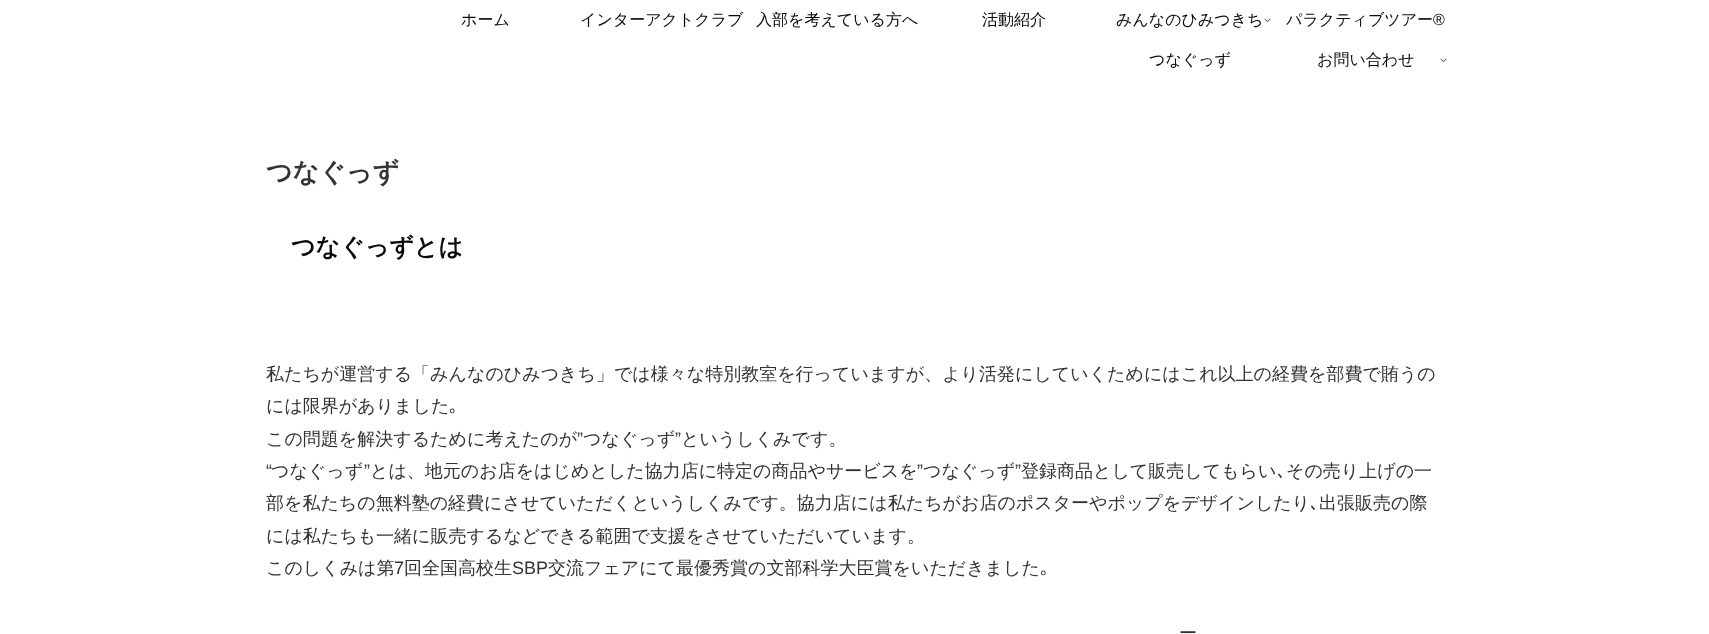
<svg xmlns="http://www.w3.org/2000/svg" width="1709" height="634" viewBox="0 0 1709 634">
  <rect width="100%" height="100%" fill="#fff"/>
  <image x="1264" y="18" width="7" height="5" href="img/1.png"/>
  <image x="1440" y="58" width="7" height="5" href="img/1.png"/>
  <g font-family="WenQuanYi Zen Hei" font-size="16" font-weight="500" fill="#0a0a0a">
    <text x="461" y="25">ホーム</text>
    <text x="580" y="25">インターアクトクラブ</text>
    <text x="756" y="25">入部を考えている方へ</text>
    <text x="982" y="25">活動紹介</text>
    <text x="1116" y="25">みんなのひみつきち</text>
    <text x="1286" y="25">パラクティブツアー</text>
  </g>
  <text x="1433" y="25" font-family="Liberation Sans" font-size="16" fill="#0a0a0a">®</text>
  <g font-family="WenQuanYi Zen Hei" font-size="16" font-weight="500" fill="#0a0a0a">
    <text x="1149" y="65">つなぐっず</text>
    <text x="1317" y="65">お問い合わせ</text>
  </g>
  <text x="266" y="181" font-family="WenQuanYi Zen Hei" font-size="26" font-weight="bold" fill="#333">つなぐっず</text>
  <text x="291" y="255" font-family="WenQuanYi Zen Hei" font-size="24" font-weight="bold" fill="#0a0a0a">つなぐっずとは</text>
  <g font-family="WenQuanYi Zen Hei" font-size="18" font-weight="500" fill="#333">
    <text x="266" y="380">私たちが運営する「みんなのひみつきち」では様々な特別教室を行っていますが、より活発にしていくためにはこれ以上の経費を部費で賄うの</text>
    <text x="266" y="412">には限界がありました</text>
  </g>
  <text x="449" y="412" font-family="IPAPGothic" font-size="18" fill="#333">｡</text>
  <text x="266" y="445" font-family="WenQuanYi Zen Hei" font-size="18" font-weight="500" fill="#333">この問題を解決するために考えたのが</text>
  <text x="577" y="445" font-family="Liberation Sans" font-size="18" fill="#333">”</text>
  <text x="583" y="445" font-family="WenQuanYi Zen Hei" font-size="18" font-weight="500" fill="#333">つなぐっず</text>
  <text x="675" y="445" font-family="Liberation Sans" font-size="18" fill="#333">”</text>
  <text x="681" y="445" font-family="WenQuanYi Zen Hei" font-size="18" font-weight="500" fill="#333">というしくみです。</text>
  <text x="266" y="477" font-family="Liberation Sans" font-size="18" fill="#333">“</text>
  <text x="271" y="477" font-family="WenQuanYi Zen Hei" font-size="18" font-weight="500" fill="#333">つなぐっず</text>
  <text x="364" y="477" font-family="Liberation Sans" font-size="18" fill="#333">”</text>
  <text x="370" y="477" font-family="WenQuanYi Zen Hei" font-size="18" font-weight="500" fill="#333">とは、地元のお店をはじめとした協力店に特定の商品やサービスを</text>
  <text x="917" y="477" font-family="Liberation Sans" font-size="18" fill="#333">”</text>
  <text x="923" y="477" font-family="WenQuanYi Zen Hei" font-size="18" font-weight="500" fill="#333">つなぐっず</text>
  <text x="1015" y="477" font-family="Liberation Sans" font-size="18" fill="#333">”</text>
  <g font-family="WenQuanYi Zen Hei" font-size="18" font-weight="500" fill="#333">
    <text x="1021" y="477">登録商品として販売してもらい</text>
    <text x="1286" y="477">その売り上げの一</text>
  </g>
  <text x="1277" y="477" font-family="IPAPGothic" font-size="18" fill="#333">､</text>
  <text x="266" y="509" font-family="WenQuanYi Zen Hei" font-size="18" font-weight="500" fill="#333">部を私たちの無料塾の経費にさせていただくというしくみです。協力店には私たちがお店のポスターやポップをデザインしたり</text>
  <text x="1310" y="509" font-family="IPAPGothic" font-size="18" fill="#333">､</text>
  <g font-family="WenQuanYi Zen Hei" font-size="18" font-weight="500" fill="#333">
    <text x="1319" y="509">出張販売の際</text>
    <text x="266" y="542">には私たちも一緒に販売するなどできる範囲で支援をさせていただいています。</text>
    <text x="266" y="574">このしくみは第</text>
  </g>
  <text x="394" y="574" font-family="Liberation Sans" font-size="18" fill="#333">7</text>
  <text x="404" y="574" font-family="WenQuanYi Zen Hei" font-size="18" font-weight="500" fill="#333">回全国高校生</text>
  <text x="512" y="574" font-family="Liberation Sans" font-size="18" fill="#333">SBP</text>
  <text x="548" y="574" font-family="WenQuanYi Zen Hei" font-size="18" font-weight="500" fill="#333">交流フェアにて最優秀賞の文部科学大臣賞をいただきました</text>
  <text x="1040" y="574" font-family="IPAPGothic" font-size="18" fill="#333">｡</text>
  <text x="1179" y="639" font-family="WenQuanYi Zen Hei" font-size="18" font-weight="500" fill="#333">ー</text>
</svg>
